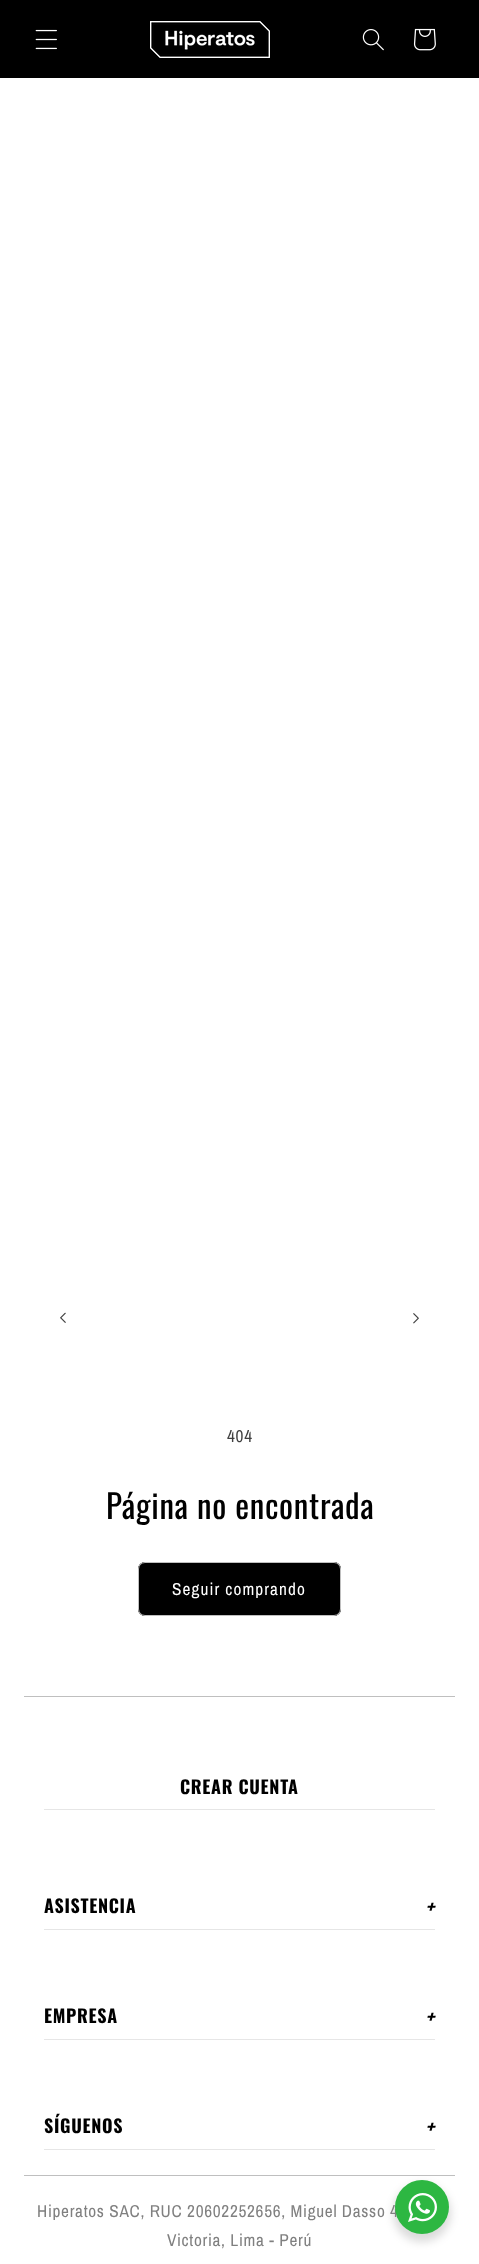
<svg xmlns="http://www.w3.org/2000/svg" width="479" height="2264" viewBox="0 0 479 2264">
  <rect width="100%" height="100%" fill="#fff"/>
  <path d="M0 0h479v78H0z" fill="#000"/>
  <image x="35" y="29" width="22" height="21" href="img/1.png"/>
  <image x="150" y="21" width="120" height="37" href="img/2.png"/>
  <image x="362" y="29" width="22" height="22" href="img/3.png"/>
  <image x="413" y="28" width="23" height="23" href="img/4.png"/>
  <image x="60" y="1312" width="6" height="11" href="img/5.png"/>
  <image x="413" y="1313" width="6" height="11" href="img/6.png"/>
  <rect x="138" y="1562" width="203" height="54" rx="7" fill="#000"/>
  <rect x="138.5" y="1562.5" width="202" height="53" rx="6.5" fill="none" stroke="#000"/>
  <rect x="138.5" y="1562.5" width="202" height="53" rx="6.5" fill="none" stroke="#ffffffbf"/>
  <path d="M24 1696h431v1H24z" fill="#bfbfbf"/>
  <path d="M44 1809h391v1H44z" fill="#e6e6e6"/>
  <path d="M44 1929h391v1H44z" fill="#e6e6e6"/>
  <path d="M44 2039h391v1H44z" fill="#e6e6e6"/>
  <path d="M44 2149h391v1H44z" fill="#e6e6e6"/>
  <path d="M24 2175h431v1H24z" fill="#bfbfbf"/>
  <rect x="393" y="2184" width="58" height="58" rx="29" fill="#00000024" filter="blur(4px)"/>
  <text x="227" y="1442" font-family="Archivo Narrow" font-size="17.25" letter-spacing="0.7" fill="#404040">404</text>
  <text x="106" y="1519" font-family="Oswald" font-size="33" letter-spacing="0.7" fill="#000">Página no encontrada</text>
  <text x="172" y="1595" font-family="Archivo Narrow" font-size="17.25" letter-spacing="1.1" fill="#fff">Seguir comprando</text>
  <g font-family="Oswald" font-size="18" font-weight="bold" letter-spacing="0.7" fill="#000">
    <text x="180" y="1794">CREAR CUENTA</text>
    <text x="44" y="1913">ASISTENCIA</text>
  </g>
  <text x="425" y="1915" font-family="Oswald" font-size="20" font-weight="bold" font-style="italic" letter-spacing="0.7" fill="#000">+</text>
  <text x="44" y="2023" font-family="Oswald" font-size="18" font-weight="bold" letter-spacing="0.7" fill="#000">EMPRESA</text>
  <text x="425" y="2025" font-family="Oswald" font-size="20" font-weight="bold" font-style="italic" letter-spacing="0.7" fill="#000">+</text>
  <text x="44" y="2133" font-family="Oswald" font-size="18" font-weight="bold" letter-spacing="0.7" fill="#000">SÍGUENOS</text>
  <text x="425" y="2135" font-family="Oswald" font-size="20" font-weight="bold" font-style="italic" letter-spacing="0.7" fill="#000">+</text>
  <g font-family="Archivo Narrow" font-size="17.25" letter-spacing="0.7" fill="#808080">
    <text x="37" y="2217">Hiperatos SAC, RUC 20602252656, Miguel Dasso 4</text>
    <text x="167" y="2246">Victoria, Lima - Perú</text>
  </g>
  <circle cx="422" cy="2207" r="27" fill="#2db742"/>
  <image x="408" y="2193" width="29" height="29" href="img/7.png"/>
</svg>
